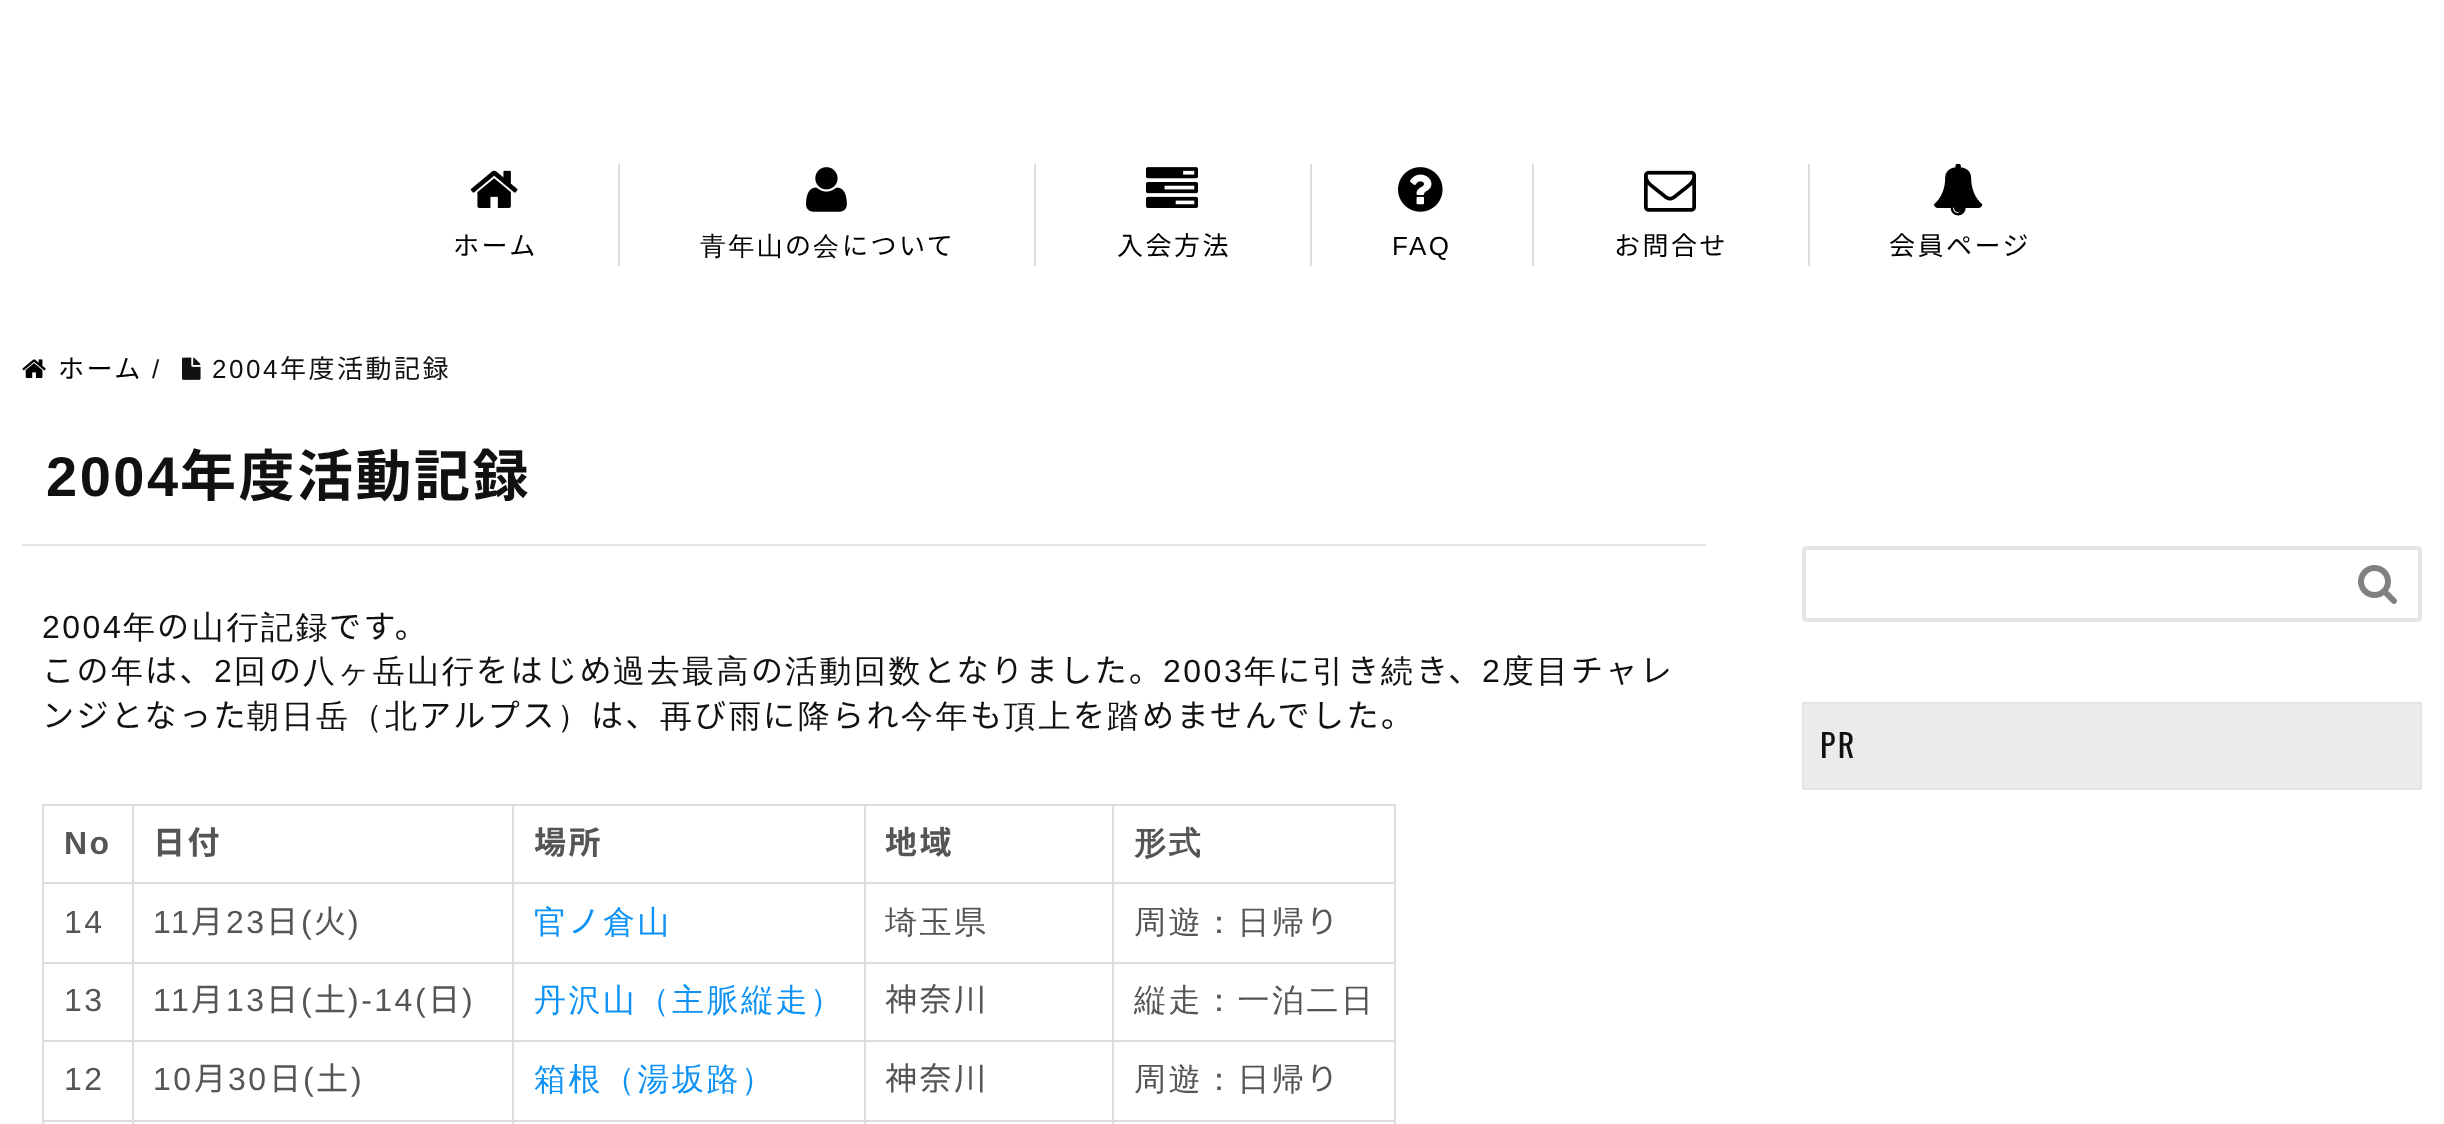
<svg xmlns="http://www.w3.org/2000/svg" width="2444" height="1124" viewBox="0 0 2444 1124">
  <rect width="100%" height="100%" fill="#fff"/>
  <path d="M618 164h2v102H618z" fill="#ddd"/>
  <image x="470" y="170" width="48" height="38" href="img/1.png"/>
  <path d="M1034 164h2v102H1034z" fill="#ddd"/>
  <image x="806" y="167" width="41" height="45" href="img/2.png"/>
  <path d="M1310 164h2v102H1310z" fill="#ddd"/>
  <image x="1146" y="167" width="52" height="41" href="img/3.png"/>
  <path d="M1532 164h2v102H1532z" fill="#ddd"/>
  <image x="1398" y="167" width="45" height="45" href="img/4.png"/>
  <path d="M1808 164h2v102H1808z" fill="#ddd"/>
  <image x="1644" y="170" width="52" height="42" href="img/5.png"/>
  <image x="1934" y="164" width="49" height="52" href="img/6.png"/>
  <image x="22" y="359" width="24" height="19" href="img/7.png"/>
  <image x="182" y="357" width="19" height="23" href="img/8.png"/>
  <path d="M22 544h1684v2H22z" fill="#e5e5e5"/>
  <path d="M42 804h1354v2H42z" fill="#ddd"/>
  <path d="M1394 804h2v320H1394z" fill="#ddd"/>
  <path d="M42 804h2v320H42z" fill="#ddd"/>
  <path d="M1112 882h284v2H1112z" fill="#ddd"/>
  <path d="M1112 962h284v2H1112z" fill="#ddd"/>
  <path d="M1112 1040h284v2H1112z" fill="#ddd"/>
  <path d="M1112 1120h284v2H1112z" fill="#ddd"/>
  <path d="M1112 1120h2v4H1112z" fill="#ddd"/>
  <path d="M864 1120h250v2H864z" fill="#ddd"/>
  <path d="M1112 1040h2v82H1112z" fill="#ddd"/>
  <path d="M864 1040h250v2H864z" fill="#ddd"/>
  <path d="M1112 962h2v80H1112z" fill="#ddd"/>
  <path d="M864 962h250v2H864z" fill="#ddd"/>
  <path d="M1112 882h2v82H1112z" fill="#ddd"/>
  <path d="M864 882h250v2H864z" fill="#ddd"/>
  <path d="M864 1120h2v4H864z" fill="#ddd"/>
  <path d="M512 1120h354v2H512z" fill="#ddd"/>
  <path d="M864 1040h2v82H864z" fill="#ddd"/>
  <path d="M512 1040h354v2H512z" fill="#ddd"/>
  <path d="M864 962h2v80H864z" fill="#ddd"/>
  <path d="M512 962h354v2H512z" fill="#ddd"/>
  <path d="M864 882h2v82H864z" fill="#ddd"/>
  <path d="M512 882h354v2H512z" fill="#ddd"/>
  <path d="M512 1120h2v4H512z" fill="#ddd"/>
  <path d="M132 1120h382v2H132z" fill="#ddd"/>
  <path d="M512 1040h2v82H512z" fill="#ddd"/>
  <path d="M132 1040h382v2H132z" fill="#ddd"/>
  <path d="M512 962h2v80H512z" fill="#ddd"/>
  <path d="M132 962h382v2H132z" fill="#ddd"/>
  <path d="M512 882h2v82H512z" fill="#ddd"/>
  <path d="M132 882h382v2H132z" fill="#ddd"/>
  <path d="M132 1120h2v4H132z" fill="#ddd"/>
  <path d="M42 1120h92v2H42z" fill="#ddd"/>
  <path d="M132 1040h2v82H132z" fill="#ddd"/>
  <path d="M42 1040h92v2H42z" fill="#ddd"/>
  <path d="M132 962h2v80H132z" fill="#ddd"/>
  <path d="M42 962h92v2H42z" fill="#ddd"/>
  <path d="M132 882h2v82H132z" fill="#ddd"/>
  <path d="M42 882h92v2H42z" fill="#ddd"/>
  <path d="M132 804h2v80H132z" fill="#ddd"/>
  <path d="M512 804h2v80H512z" fill="#ddd"/>
  <path d="M864 804h2v80H864z" fill="#ddd"/>
  <path d="M1112 804h2v80H1112z" fill="#ddd"/>
  <rect x="1803" y="547" width="618" height="74" rx="3" fill="none" stroke="#e5e5e5" stroke-width="2"/>
  <rect x="1805" y="549" width="614" height="70" rx="3" fill="none" stroke="#e5e5e5" stroke-width="2"/>
  <image x="2358" y="565" width="39" height="39" href="img/9.png"/>
  <path d="M1803 703h618v86H1803z" fill="#ebebeb" stroke="#e4e4e4" stroke-width="2"/>
  <text x="453" y="255" font-family="Noto Sans JP" font-size="26" letter-spacing="2.5" fill="#000">ホーム</text>
  <text x="700" y="255" font-family="WenQuanYi Zen Hei" font-size="26" font-weight="500" letter-spacing="2.5" fill="#000">青年山</text>
  <text x="785" y="255" font-family="Noto Sans JP" font-size="26" letter-spacing="2.5" fill="#000">の</text>
  <text x="813" y="255" font-family="WenQuanYi Zen Hei" font-size="26" font-weight="500" letter-spacing="2.5" fill="#000">会</text>
  <g font-family="Noto Sans JP" font-size="26" letter-spacing="2.5" fill="#000">
    <text x="842" y="255">について</text>
    <text x="1117" y="255">入会方法</text>
  </g>
  <text x="1392" y="255" font-family="Liberation Sans" font-size="26" letter-spacing="2.5" fill="#000">FAQ</text>
  <g font-family="Noto Sans JP" font-size="26" letter-spacing="2.5" fill="#000">
    <text x="1614" y="255">お問合せ</text>
    <text x="1889" y="255">会員ページ</text>
    <text x="58" y="378">ホーム</text>
  </g>
  <g font-family="Liberation Sans" font-size="26" letter-spacing="2.5" fill="#111">
    <text x="152" y="378">/</text>
    <text x="212" y="378">2004</text>
  </g>
  <text x="280" y="378" font-family="Noto Sans JP" font-size="26" letter-spacing="2.5" fill="#111">年度活動記録</text>
  <text x="46" y="496" font-family="Liberation Sans" font-size="56" font-weight="bold" letter-spacing="2.5" fill="#111">2004</text>
  <text x="180" y="496" font-family="Noto Sans JP" font-size="56" font-weight="bold" letter-spacing="2.5" fill="#111">年度活動記録</text>
  <text x="42" y="638" font-family="Liberation Sans" font-size="32" letter-spacing="2.5" fill="#111">2004</text>
  <text x="123" y="638" font-family="WenQuanYi Zen Hei" font-size="32" font-weight="500" letter-spacing="2.5" fill="#111">年</text>
  <text x="157" y="638" font-family="Noto Sans JP" font-size="32" letter-spacing="2.5" fill="#111">の</text>
  <text x="192" y="638" font-family="WenQuanYi Zen Hei" font-size="32" font-weight="500" letter-spacing="2.5" fill="#111">山行記録</text>
  <g font-family="Noto Sans JP" font-size="32" letter-spacing="2.5" fill="#111">
    <text x="329" y="638">です。</text>
    <text x="42" y="682">この</text>
  </g>
  <text x="111" y="682" font-family="WenQuanYi Zen Hei" font-size="32" font-weight="500" letter-spacing="2.5" fill="#111">年</text>
  <text x="145" y="682" font-family="Noto Sans JP" font-size="32" letter-spacing="2.5" fill="#111">は、</text>
  <text x="214" y="682" font-family="Liberation Sans" font-size="32" letter-spacing="2.5" fill="#111">2</text>
  <text x="234" y="682" font-family="WenQuanYi Zen Hei" font-size="32" font-weight="500" letter-spacing="2.5" fill="#111">回</text>
  <text x="269" y="682" font-family="Noto Sans JP" font-size="32" letter-spacing="2.5" fill="#111">の</text>
  <text x="303" y="682" font-family="WenQuanYi Zen Hei" font-size="32" font-weight="500" letter-spacing="2.5" fill="#111">八ヶ岳山行</text>
  <text x="476" y="682" font-family="Noto Sans JP" font-size="32" letter-spacing="2.5" fill="#111">をはじめ</text>
  <text x="613" y="682" font-family="WenQuanYi Zen Hei" font-size="32" font-weight="500" letter-spacing="2.5" fill="#111">過去最高</text>
  <text x="751" y="682" font-family="Noto Sans JP" font-size="32" letter-spacing="2.5" fill="#111">の</text>
  <text x="785" y="682" font-family="WenQuanYi Zen Hei" font-size="32" font-weight="500" letter-spacing="2.5" fill="#111">活動回数</text>
  <text x="923" y="682" font-family="Noto Sans JP" font-size="32" letter-spacing="2.5" fill="#111">となりました。</text>
  <text x="1163" y="682" font-family="Liberation Sans" font-size="32" letter-spacing="2.5" fill="#111">2003</text>
  <text x="1244" y="682" font-family="WenQuanYi Zen Hei" font-size="32" font-weight="500" letter-spacing="2.5" fill="#111">年</text>
  <text x="1278" y="682" font-family="Noto Sans JP" font-size="32" letter-spacing="2.5" fill="#111">に</text>
  <text x="1312" y="682" font-family="WenQuanYi Zen Hei" font-size="32" font-weight="500" letter-spacing="2.5" fill="#111">引</text>
  <text x="1347" y="682" font-family="Noto Sans JP" font-size="32" letter-spacing="2.5" fill="#111">き</text>
  <text x="1381" y="682" font-family="WenQuanYi Zen Hei" font-size="32" font-weight="500" letter-spacing="2.5" fill="#111">続</text>
  <text x="1416" y="682" font-family="Noto Sans JP" font-size="32" letter-spacing="2.5" fill="#111">き、</text>
  <text x="1482" y="682" font-family="Liberation Sans" font-size="32" letter-spacing="2.5" fill="#111">2</text>
  <text x="1502" y="682" font-family="WenQuanYi Zen Hei" font-size="32" font-weight="500" letter-spacing="2.5" fill="#111">度目</text>
  <g font-family="Noto Sans JP" font-size="32" letter-spacing="2.5" fill="#111">
    <text x="1571" y="682">チャレ</text>
    <text x="42" y="727">ンジとなった</text>
  </g>
  <text x="247" y="727" font-family="WenQuanYi Zen Hei" font-size="32" font-weight="500" letter-spacing="2.5" fill="#111">朝日岳（北</text>
  <text x="419" y="727" font-family="Noto Sans JP" font-size="32" letter-spacing="2.5" fill="#111">アルプス</text>
  <text x="557" y="727" font-family="WenQuanYi Zen Hei" font-size="32" font-weight="500" letter-spacing="2.5" fill="#111">）</text>
  <text x="591" y="727" font-family="Noto Sans JP" font-size="32" letter-spacing="2.5" fill="#111">は、</text>
  <text x="660" y="727" font-family="WenQuanYi Zen Hei" font-size="32" font-weight="500" letter-spacing="2.5" fill="#111">再</text>
  <text x="694" y="727" font-family="Noto Sans JP" font-size="32" letter-spacing="2.5" fill="#111">び</text>
  <text x="729" y="727" font-family="WenQuanYi Zen Hei" font-size="32" font-weight="500" letter-spacing="2.5" fill="#111">雨</text>
  <text x="763" y="727" font-family="Noto Sans JP" font-size="32" letter-spacing="2.5" fill="#111">に</text>
  <text x="798" y="727" font-family="WenQuanYi Zen Hei" font-size="32" font-weight="500" letter-spacing="2.5" fill="#111">降</text>
  <text x="832" y="727" font-family="Noto Sans JP" font-size="32" letter-spacing="2.5" fill="#111">られ</text>
  <text x="901" y="727" font-family="WenQuanYi Zen Hei" font-size="32" font-weight="500" letter-spacing="2.5" fill="#111">今年</text>
  <text x="970" y="727" font-family="Noto Sans JP" font-size="32" letter-spacing="2.5" fill="#111">も</text>
  <text x="1004" y="727" font-family="WenQuanYi Zen Hei" font-size="32" font-weight="500" letter-spacing="2.5" fill="#111">頂上</text>
  <text x="1073" y="727" font-family="Noto Sans JP" font-size="32" letter-spacing="2.5" fill="#111">を</text>
  <text x="1107" y="727" font-family="WenQuanYi Zen Hei" font-size="32" font-weight="500" letter-spacing="2.5" fill="#111">踏</text>
  <text x="1142" y="727" font-family="Noto Sans JP" font-size="32" letter-spacing="2.5" fill="#111">めませんでした。</text>
  <text x="64" y="854" font-family="Liberation Sans" font-size="32" font-weight="bold" letter-spacing="2.5" fill="#555">No</text>
  <g font-family="Noto Sans JP" font-size="32" font-weight="bold" letter-spacing="2.5" fill="#555">
    <text x="153" y="854">日付</text>
    <text x="534" y="854">場所</text>
    <text x="885" y="854">地域</text>
  </g>
  <text x="1134" y="854" font-family="WenQuanYi Zen Hei" font-size="32" font-weight="bold" letter-spacing="2.5" fill="#555">形式</text>
  <g font-family="Liberation Sans" font-size="32" letter-spacing="2.5" fill="#555">
    <text x="64" y="933">14</text>
    <text x="153" y="933">11</text>
  </g>
  <text x="191" y="933" font-family="Noto Sans JP" font-size="32" letter-spacing="2.5" fill="#555">月</text>
  <text x="226" y="933" font-family="Liberation Sans" font-size="32" letter-spacing="2.5" fill="#555">23</text>
  <text x="266" y="933" font-family="Noto Sans JP" font-size="32" letter-spacing="2.5" fill="#555">日</text>
  <text x="301" y="933" font-family="Liberation Sans" font-size="32" letter-spacing="2.5" fill="#555">(</text>
  <text x="314" y="933" font-family="Noto Sans JP" font-size="32" letter-spacing="2.5" fill="#555">火</text>
  <text x="348" y="933" font-family="Liberation Sans" font-size="32" letter-spacing="2.5" fill="#555">)</text>
  <text x="534" y="933" font-family="WenQuanYi Zen Hei" font-size="32" font-weight="500" letter-spacing="2.5" fill="#0f92f6">官</text>
  <text x="568" y="933" font-family="Noto Sans JP" font-size="32" letter-spacing="2.5" fill="#0f92f6">ノ</text>
  <text x="603" y="933" font-family="WenQuanYi Zen Hei" font-size="32" font-weight="500" letter-spacing="2.5" fill="#0f92f6">倉山</text>
  <g font-family="WenQuanYi Zen Hei" font-size="32" font-weight="500" letter-spacing="2.5" fill="#555">
    <text x="885" y="933">埼玉県</text>
    <text x="1134" y="933">周遊：日帰</text>
  </g>
  <text x="1306" y="933" font-family="Noto Sans JP" font-size="32" letter-spacing="2.5" fill="#555">り</text>
  <g font-family="Liberation Sans" font-size="32" letter-spacing="2.5" fill="#555">
    <text x="64" y="1011">13</text>
    <text x="153" y="1011">11</text>
  </g>
  <text x="191" y="1011" font-family="Noto Sans JP" font-size="32" letter-spacing="2.5" fill="#555">月</text>
  <text x="226" y="1011" font-family="Liberation Sans" font-size="32" letter-spacing="2.5" fill="#555">13</text>
  <text x="266" y="1011" font-family="Noto Sans JP" font-size="32" letter-spacing="2.5" fill="#555">日</text>
  <text x="301" y="1011" font-family="Liberation Sans" font-size="32" letter-spacing="2.5" fill="#555">(</text>
  <text x="314" y="1011" font-family="Noto Sans JP" font-size="32" letter-spacing="2.5" fill="#555">土</text>
  <text x="348" y="1011" font-family="Liberation Sans" font-size="32" letter-spacing="2.5" fill="#555">)-14(</text>
  <text x="428" y="1011" font-family="Noto Sans JP" font-size="32" letter-spacing="2.5" fill="#555">日</text>
  <text x="462" y="1011" font-family="Liberation Sans" font-size="32" letter-spacing="2.5" fill="#555">)</text>
  <text x="534" y="1011" font-family="WenQuanYi Zen Hei" font-size="32" font-weight="500" letter-spacing="2.5" fill="#0f92f6">丹沢山（主脈縦走）</text>
  <text x="885" y="1011" font-family="Noto Sans JP" font-size="32" letter-spacing="2.5" fill="#555">神奈川</text>
  <text x="1134" y="1011" font-family="WenQuanYi Zen Hei" font-size="32" font-weight="500" letter-spacing="2.5" fill="#555">縦走：一泊二日</text>
  <g font-family="Liberation Sans" font-size="32" letter-spacing="2.5" fill="#555">
    <text x="64" y="1090">12</text>
    <text x="153" y="1090">10</text>
  </g>
  <text x="194" y="1090" font-family="Noto Sans JP" font-size="32" letter-spacing="2.5" fill="#555">月</text>
  <text x="228" y="1090" font-family="Liberation Sans" font-size="32" letter-spacing="2.5" fill="#555">30</text>
  <text x="269" y="1090" font-family="Noto Sans JP" font-size="32" letter-spacing="2.5" fill="#555">日</text>
  <text x="303" y="1090" font-family="Liberation Sans" font-size="32" letter-spacing="2.5" fill="#555">(</text>
  <text x="316" y="1090" font-family="Noto Sans JP" font-size="32" letter-spacing="2.5" fill="#555">土</text>
  <text x="351" y="1090" font-family="Liberation Sans" font-size="32" letter-spacing="2.5" fill="#555">)</text>
  <text x="534" y="1090" font-family="WenQuanYi Zen Hei" font-size="32" font-weight="500" letter-spacing="2.5" fill="#0f92f6">箱根（湯坂路）</text>
  <text x="885" y="1090" font-family="Noto Sans JP" font-size="32" letter-spacing="2.5" fill="#555">神奈川</text>
  <text x="1134" y="1090" font-family="WenQuanYi Zen Hei" font-size="32" font-weight="500" letter-spacing="2.5" fill="#555">周遊：日帰</text>
  <text x="1306" y="1090" font-family="Noto Sans JP" font-size="32" letter-spacing="2.5" fill="#555">り</text>
  <text x="1820" y="758" font-family="Oswald" font-size="32" letter-spacing="2.5" fill="#111">PR</text>
</svg>
